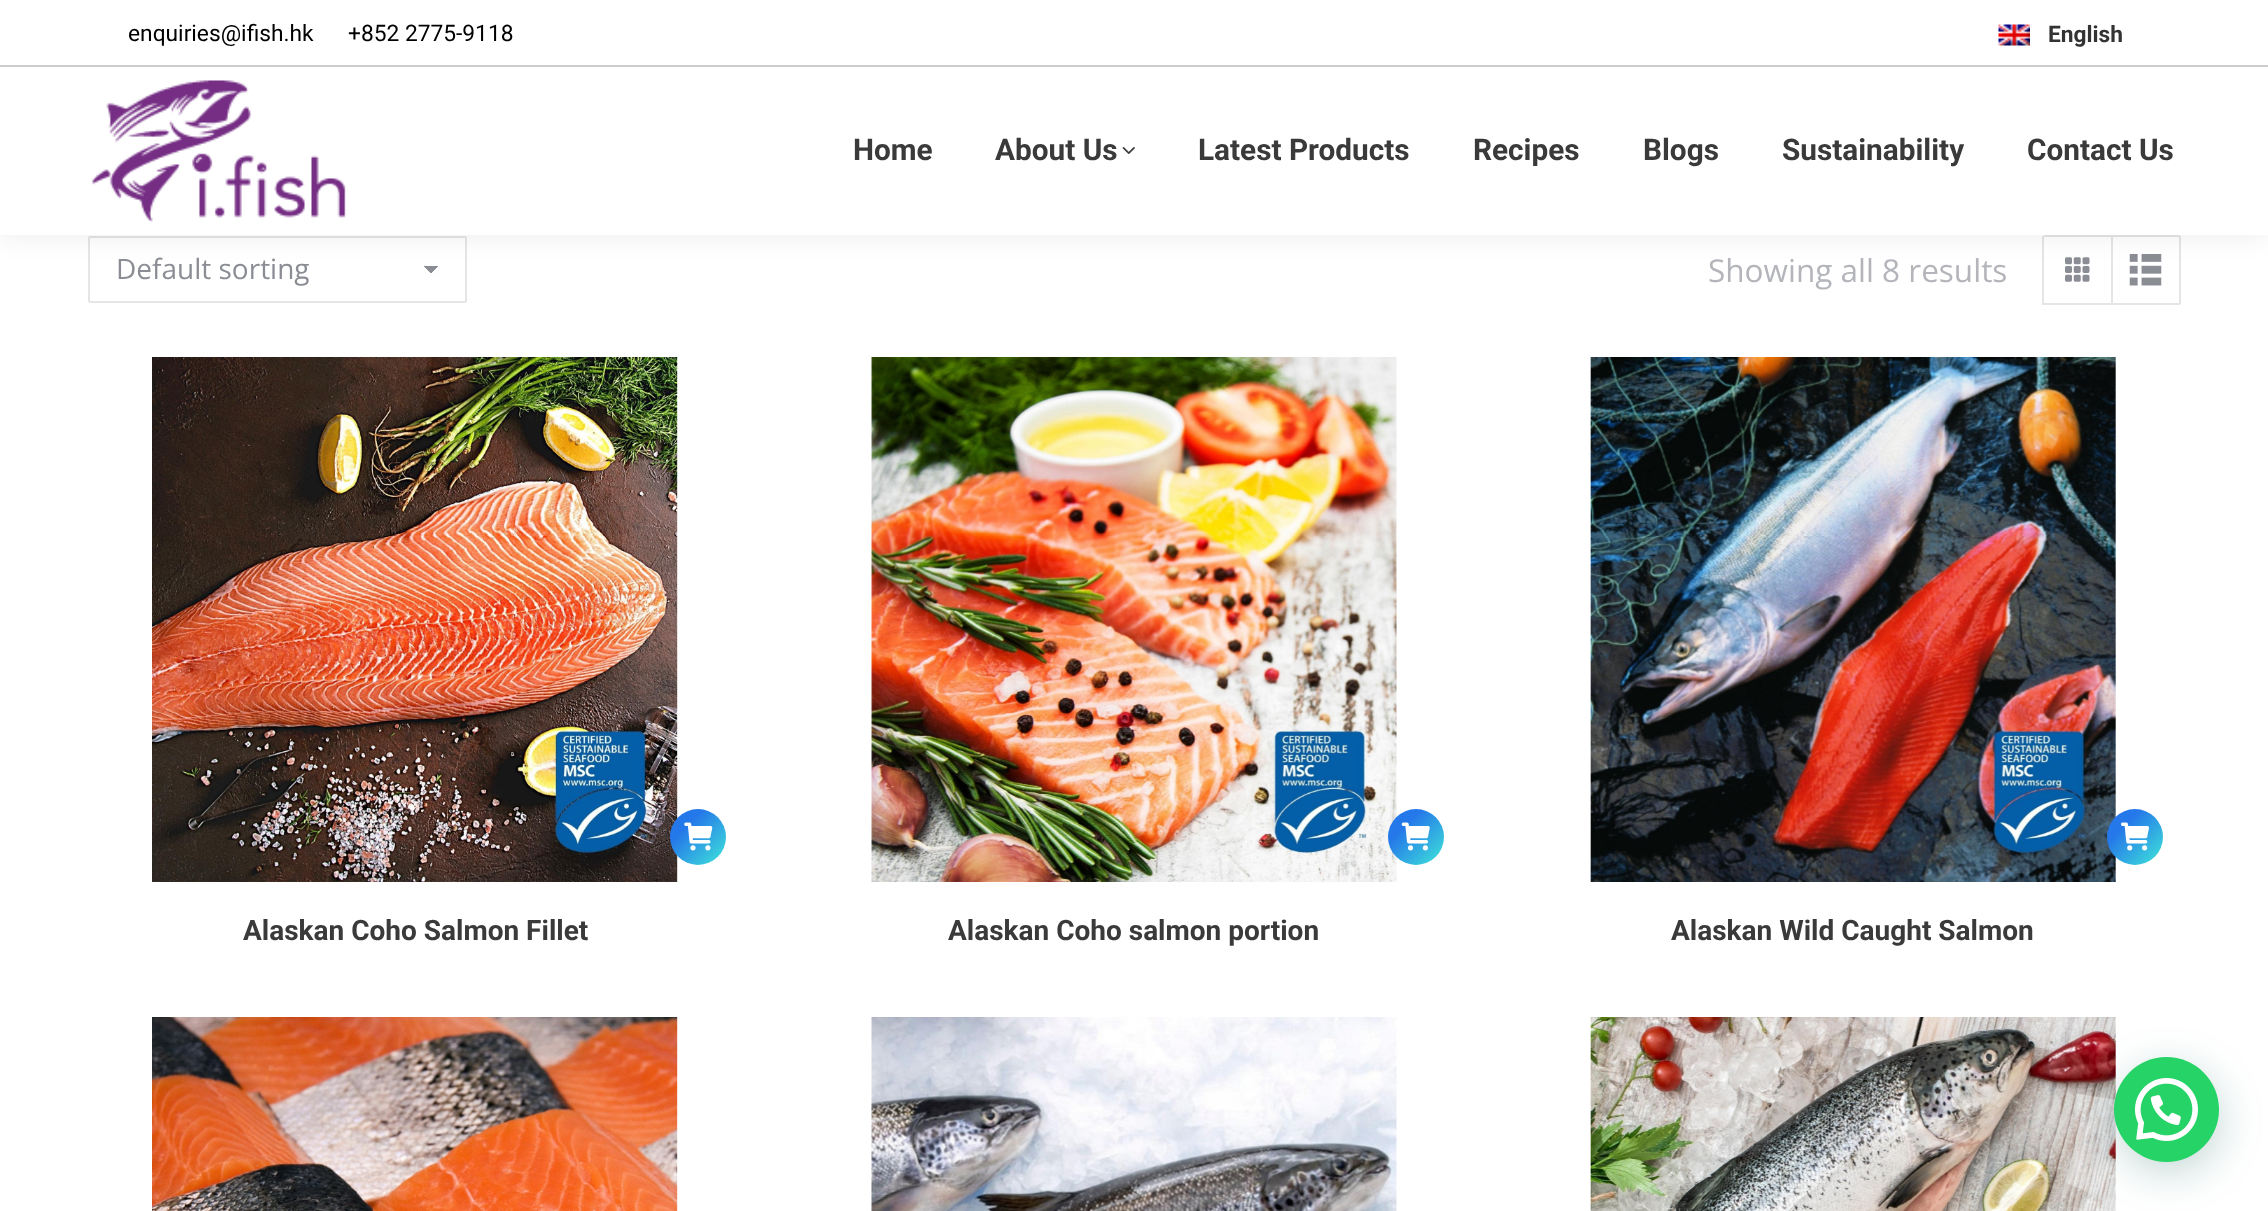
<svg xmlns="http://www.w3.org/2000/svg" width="2268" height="1211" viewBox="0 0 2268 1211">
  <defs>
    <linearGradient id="g1" gradientUnits="userSpaceOnUse" x1="431" y1="265" x2="439" y2="274"><stop offset="0.5" stop-color="#8b8d94"/><stop offset="0.5" stop-color="#fdfdfd"/></linearGradient>
    <linearGradient id="g2" gradientUnits="userSpaceOnUse" x1="422" y1="274" x2="431" y2="265"><stop offset="0.5" stop-color="#fdfdfd"/><stop offset="0.5" stop-color="#8b8d94"/></linearGradient>
    <linearGradient id="g3" gradientUnits="userSpaceOnUse" x1="670" y1="809" x2="726" y2="865"><stop offset="0.3" stop-color="#2578e9"/><stop offset="1" stop-color="#3fe7d9"/></linearGradient>
    <linearGradient id="g4" gradientUnits="userSpaceOnUse" x1="1388" y1="809" x2="1444" y2="865"><stop offset="0.3" stop-color="#2578e9"/><stop offset="1" stop-color="#3fe7d9"/></linearGradient>
    <linearGradient id="g5" gradientUnits="userSpaceOnUse" x1="2107" y1="809" x2="2163" y2="865"><stop offset="0.3" stop-color="#2578e9"/><stop offset="1" stop-color="#3fe7d9"/></linearGradient>
  </defs>
  <rect width="100%" height="100%" fill="#fff"/>
  <path d="M431 266h7v9H431z" fill="url(#g1)"/>
  <path d="M424 266h7v7H424z" fill="url(#g2)"/>
  <rect x="89" y="237" width="377" height="65" rx="1" fill="none" stroke="#e5e5e5" stroke-width="2"/>
  <path d="M2044 235h67v2H2044z" fill="#e5e5e5"/>
  <path d="M2042 236h2v69H2042z" fill="#e5e5e5"/>
  <image x="2065" y="257" width="25" height="25" href="img/4.png"/>
  <path d="M2112 236H2179C2179.5 236 2180 236.5 2180 237V303C2180 303.5 2179.5 304 2179 304H2112Z" fill="none" stroke="#e5e5e5" stroke-width="2"/>
  <image x="2129" y="254" width="33" height="32" href="img/5.png"/>
  <path d="M-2 -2h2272v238H-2z" fill="#00000012" filter="blur(13px)"/>
  <path d="M0 0h2268v235H0z" fill="#fff"/>
  <image x="1998" y="24" width="32" height="22" href="img/1.png"/>
  <path d="M0 65h2268v2H0z" fill="#ccc"/>
  <image x="91" y="80" width="255" height="143" href="img/2.png"/>
  <image x="1122" y="147" width="13" height="7" href="img/3.png"/>
  <path d="M2044 303h67v2H2044z" fill="#e5e5e5"/>
  <image x="152" y="357" width="526" height="525" href="img/6.png"/>
  <circle cx="698" cy="837" r="28" fill="url(#g3)"/>
  <image x="684" y="822" width="29" height="29" href="img/7.png"/>
  <image x="871" y="357" width="526" height="525" href="img/8.png"/>
  <circle cx="1416" cy="837" r="28" fill="url(#g4)"/>
  <image x="1401" y="822" width="29" height="29" href="img/9.png"/>
  <image x="1590" y="357" width="526" height="525" href="img/10.png"/>
  <circle cx="2135" cy="837" r="28" fill="url(#g5)"/>
  <image x="2121" y="822" width="28" height="29" href="img/11.png"/>
  <image x="152" y="1017" width="526" height="194" href="img/12.png"/>
  <image x="871" y="1017" width="526" height="194" href="img/13.png"/>
  <image x="1590" y="1017" width="526" height="194" href="img/14.png"/>
  <rect x="2116" y="1068" width="105" height="105" rx="52.5" fill="#075e543d" filter="blur(21px)"/>
  <circle cx="2166.5" cy="1109.5" r="52.5" fill="#25d366"/>
  <image x="2135" y="1078" width="63" height="63" href="img/15.png"/>
  <g font-family="Roboto" font-size="22.75" fill="#000">
    <text x="128" y="41">enquiries@ifish.hk</text>
    <text x="348" y="41">+852 2775-9118</text>
  </g>
  <text x="2048" y="42" font-family="Roboto" font-size="22.75" font-weight="bold" fill="#333">English</text>
  <g font-family="Roboto" font-size="29.75" font-weight="bold" fill="#3a3a3a">
    <text x="853" y="160">Home</text>
    <text x="995" y="160">About Us</text>
    <text x="1198" y="160">Latest Products</text>
    <text x="1473" y="160">Recipes</text>
    <text x="1643" y="160">Blogs</text>
    <text x="1782" y="160">Sustainability</text>
    <text x="2027" y="160">Contact Us</text>
  </g>
  <text x="116" y="279" font-family="Open Sans" font-size="28" fill="#8b8d94">Default sorting</text>
  <text x="1708" y="282" font-family="Open Sans" font-size="31.5" fill="#b4b5bb">Showing all 8 results</text>
  <g font-family="Roboto" font-size="28" font-weight="bold" fill="#3a3a3a">
    <text x="243" y="940">Alaskan Coho Salmon Fillet</text>
    <text x="948" y="940">Alaskan Coho salmon portion</text>
    <text x="1671" y="940">Alaskan Wild Caught Salmon</text>
  </g>
</svg>
